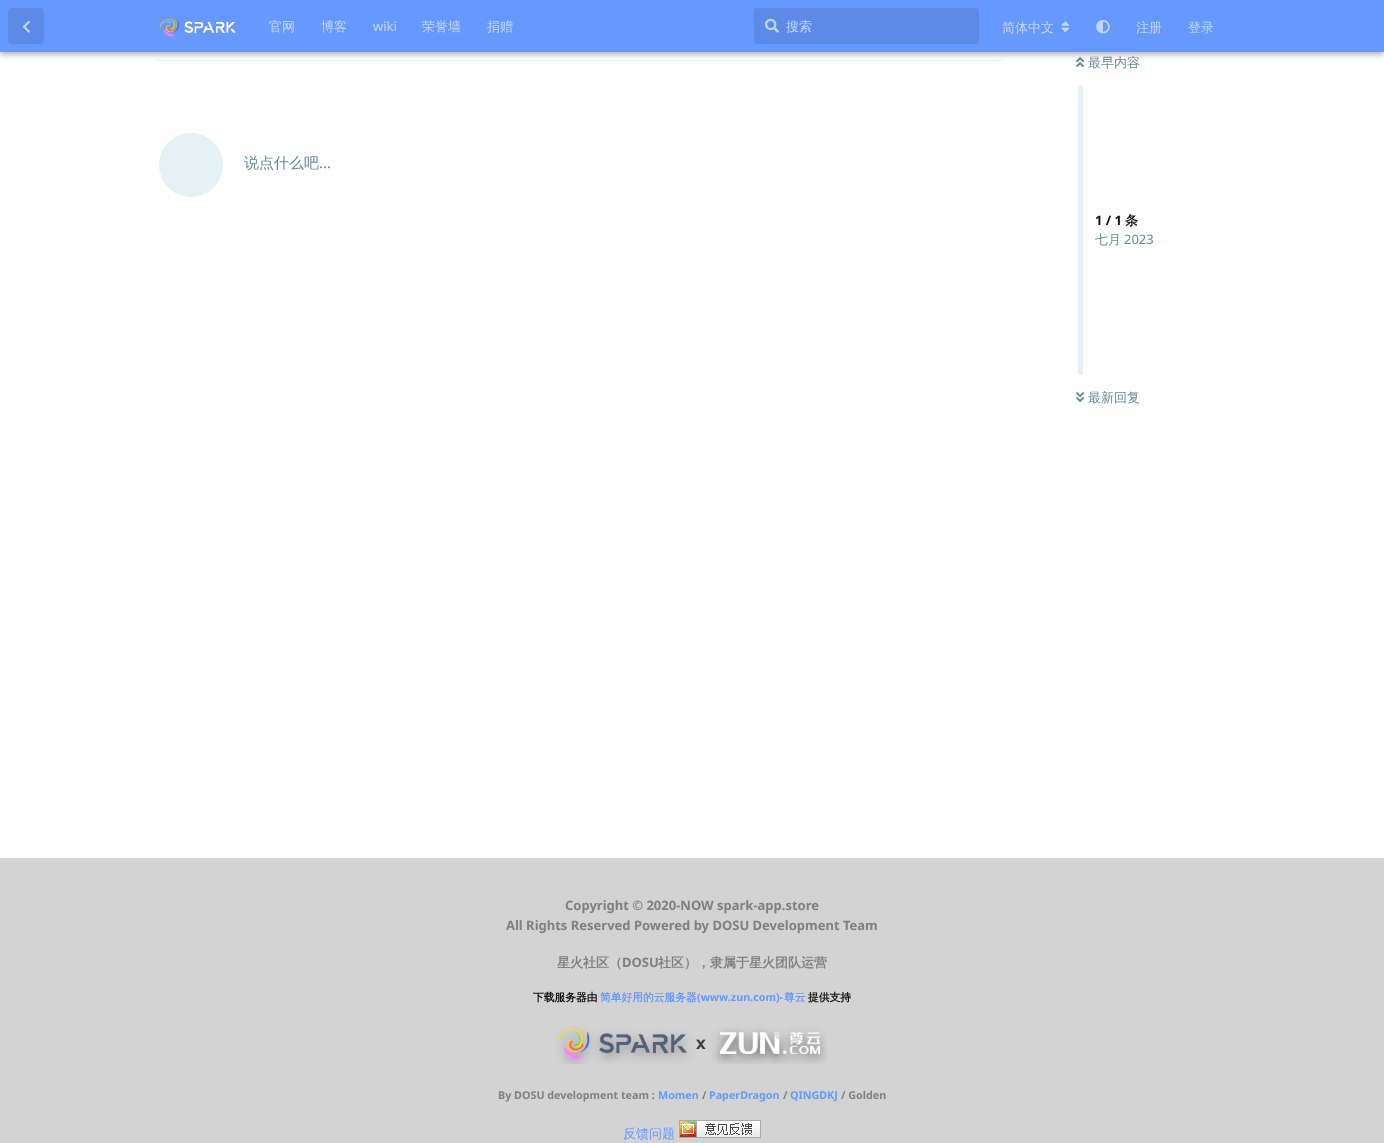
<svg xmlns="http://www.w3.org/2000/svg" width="1384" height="1143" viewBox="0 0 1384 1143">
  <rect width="100%" height="100%" fill="#fff"/>
  <path d="M157 60h845v1H157z" fill="#e4f2f6"/>
  <image x="1076" y="57" width="9" height="11" href="img/6.png"/>
  <path d="M0 2h1384v52H0z" fill="#00000059" filter="blur(3px)"/>
  <path d="M0 0h1384v52H0z" fill="#69f"/>
  <rect x="8" y="8" width="36" height="36" rx="4" fill="#5c8ae6"/>
  <image x="22" y="20" width="8" height="13" href="img/1.png"/>
  <image x="159" y="17" width="77" height="20" href="img/2.png"/>
  <rect x="754" y="8" width="225" height="36" rx="4" fill="#5c8ae6"/>
  <image x="765" y="18" width="14" height="15" href="img/3.png"/>
  <image x="1061" y="21" width="9" height="12" href="img/4.png"/>
  <image x="1096" y="20" width="14" height="14" href="img/5.png"/>
  <circle cx="191" cy="165" r="32" fill="#e4f2f6"/>
  <rect x="1078" y="85" width="5" height="290" rx="2.5" fill="#e4f2f6"/>
  <image x="1076" y="392" width="9" height="11" href="img/7.png"/>
  <path d="M0 858h1384v285H0z" fill="#d3d3d3"/>
  <image x="556" y="1025" width="271" height="39" href="img/8.png"/>
  <image x="679" y="1120" width="82" height="18" href="img/9.png"/>
  <g font-family="WenQuanYi Zen Hei" font-size="13" font-weight="500" fill="#c2d6ff">
    <text x="269" y="31">官网</text>
    <text x="321" y="31">博客</text>
  </g>
  <text x="373" y="31" font-family="Noto Sans" font-size="13" fill="#c2d6ff">wiki</text>
  <g font-family="WenQuanYi Zen Hei" font-size="13" font-weight="500" fill="#c2d6ff">
    <text x="422" y="31">荣誉墙</text>
    <text x="487" y="31">捐赠</text>
    <text x="786" y="31">搜索</text>
    <text x="1002" y="32">简体中文</text>
    <text x="1136" y="32">注册</text>
    <text x="1188" y="32">登录</text>
  </g>
  <text x="244" y="168" font-family="WenQuanYi Zen Hei" font-size="15" font-weight="500" fill="#668c99">说点什么吧</text>
  <text x="319" y="168" font-family="Noto Sans" font-size="15" fill="#668c99">...</text>
  <text x="1088" y="67" font-family="WenQuanYi Zen Hei" font-size="13" font-weight="500" fill="#668c99">最早内容</text>
  <text x="1095" y="225" font-family="Noto Sans" font-size="13" font-weight="bold" fill="#111">1 / 1</text>
  <text x="1125" y="225" font-family="WenQuanYi Zen Hei" font-size="13" font-weight="bold" fill="#111">条</text>
  <text x="1095" y="244" font-family="WenQuanYi Zen Hei" font-size="13" font-weight="500" fill="#668c99">七月</text>
  <text x="1124" y="244" font-family="Noto Sans" font-size="13" fill="#668c99">2023</text>
  <text x="1088" y="402" font-family="WenQuanYi Zen Hei" font-size="13" font-weight="500" fill="#668c99">最新回复</text>
  <g font-family="Noto Sans" font-size="13" font-weight="bold" fill="#808080">
    <text x="565" y="910">Copyright © 2020-NOW spark-app.store</text>
    <text x="506" y="930">All Rights Reserved Powered by DOSU Development Team</text>
  </g>
  <text x="557" y="967" font-family="WenQuanYi Zen Hei" font-size="13" font-weight="bold" fill="#808080">星火社区（</text>
  <text x="622" y="967" font-family="Noto Sans" font-size="13" font-weight="bold" fill="#808080">DOSU</text>
  <text x="658" y="967" font-family="WenQuanYi Zen Hei" font-size="13" font-weight="bold" fill="#808080">社区），隶属于星火团队运营</text>
  <text x="533" y="1001" font-family="WenQuanYi Zen Hei" font-size="10.75" font-weight="bold" fill="#111">下载服务器由</text>
  <text x="600" y="1001" font-family="WenQuanYi Zen Hei" font-size="10.75" font-weight="bold" fill="#69f">简单好用的云服务器</text>
  <text x="697" y="1001" font-family="Noto Sans" font-size="10.75" font-weight="bold" fill="#69f">(www.zun.com)-</text>
  <text x="784" y="1001" font-family="WenQuanYi Zen Hei" font-size="10.75" font-weight="bold" fill="#69f">尊云</text>
  <text x="808" y="1001" font-family="WenQuanYi Zen Hei" font-size="10.75" font-weight="bold" fill="#111">提供支持</text>
  <text x="498" y="1099" font-family="Noto Sans" font-size="10.75" font-weight="bold" fill="#808080">By DOSU development team :</text>
  <text x="658" y="1099" font-family="Noto Sans" font-size="10.75" font-weight="bold" fill="#69f">Momen</text>
  <text x="702" y="1099" font-family="Noto Sans" font-size="10.75" font-weight="bold" fill="#808080">/</text>
  <text x="709" y="1099" font-family="Noto Sans" font-size="10.75" font-weight="bold" fill="#69f">PaperDragon</text>
  <text x="783" y="1099" font-family="Noto Sans" font-size="10.75" font-weight="bold" fill="#808080">/</text>
  <text x="790" y="1099" font-family="Noto Sans" font-size="10.75" font-weight="bold" fill="#69f">QINGDKJ</text>
  <text x="841" y="1099" font-family="Noto Sans" font-size="10.75" font-weight="bold" fill="#808080">/ Golden</text>
  <text x="623" y="1138" font-family="WenQuanYi Zen Hei" font-size="13" font-weight="500" fill="#69f">反馈问题</text>
</svg>
